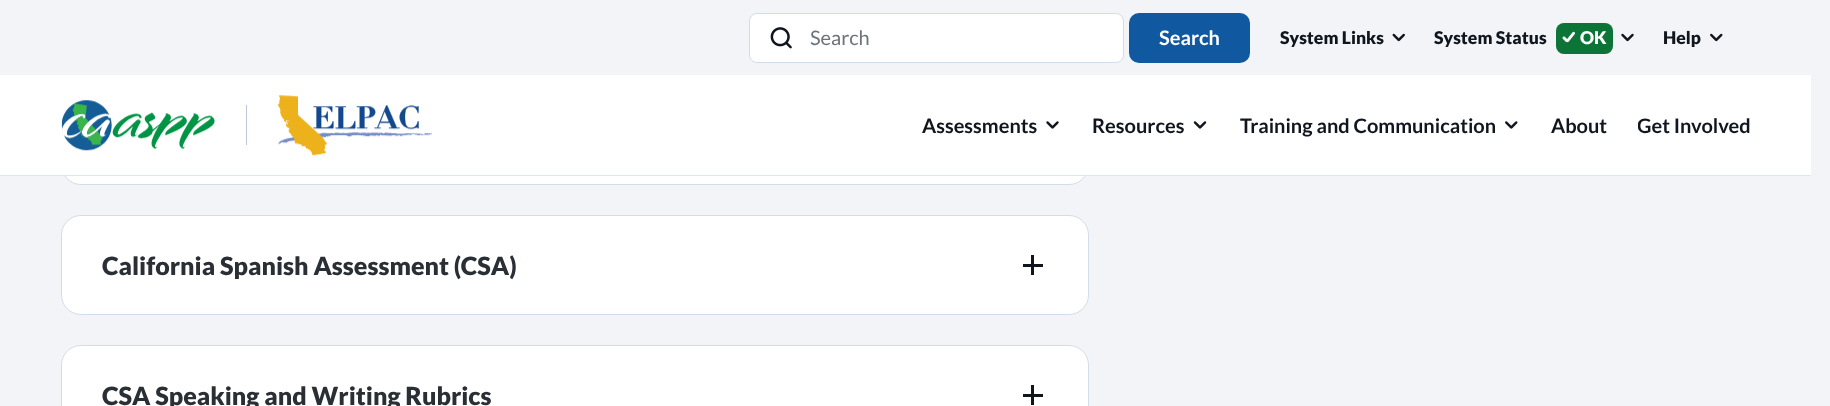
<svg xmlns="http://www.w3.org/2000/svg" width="1830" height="406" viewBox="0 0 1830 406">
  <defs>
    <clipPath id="clip1"><path d="M1638 75h113v100H1638z"/></clipPath>
  </defs>
  <rect width="100%" height="100%" fill="#f2f4f7"/>
  <rect x="61.5" y="85.5" width="1027" height="99" rx="19.5" fill="#fff" stroke="#d3dde9"/>
  <path d="M0 75h1811v100H0z" fill="#fff"/>
  <path d="M0 175h1811v1H0z" fill="#e1e7ee"/>
  <rect x="749.5" y="13.5" width="374" height="49" rx="7.5" fill="#fff" stroke="#d3dde9"/>
  <image x="770" y="27" width="22" height="22" href="img/1.png"/>
  <rect x="1129" y="13" width="121" height="50" rx="10" fill="#1059a1"/>
  <image x="1392" y="33" width="13" height="9" href="img/2.png"/>
  <rect x="1556" y="23" width="57" height="31" rx="8" fill="#0b7436"/>
  <image x="1562" y="31" width="13" height="12" href="img/3.png"/>
  <image x="1621" y="33" width="13" height="9" href="img/4.png"/>
  <image x="1710" y="33" width="13" height="9" href="img/5.png"/>
  <image x="61" y="100" width="154" height="51" href="img/6.png"/>
  <path d="M246 105h1v40H246z" fill="#bfc8d7"/>
  <image x="278" y="95" width="154" height="61" href="img/7.png"/>
  <image x="1046" y="121" width="13" height="8" href="img/8.png"/>
  <image x="1193" y="121" width="14" height="8" href="img/9.png"/>
  <image x="1505" y="121" width="13" height="8" href="img/10.png"/>
  <rect x="61.5" y="215.5" width="1027" height="99" rx="19.5" fill="#fff" stroke="#d3dde9"/>
  <path d="M1023 264h20v3H1023z" fill="#10161e"/>
  <path d="M1031 255h3v20H1031z" fill="#10161e"/>
  <rect x="61.5" y="345.5" width="1027" height="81" rx="19.5" fill="#fff" stroke="#d3dde9"/>
  <path d="M1023 394h20v3H1023z" fill="#10161e"/>
  <path d="M1031 385h3v20H1031z" fill="#10161e"/>
  <text x="810" y="45" font-family="Lato" font-size="20" fill="#6d7478">Search</text>
  <text x="1159" y="45" font-family="Lato" font-size="20" font-weight="bold" fill="#fff">Search</text>
  <g font-family="Lato" font-size="17.5" font-weight="900" fill="#10161e">
    <text x="1280" y="44">System Links</text>
    <text x="1434" y="44">System Status</text>
  </g>
  <text x="1580" y="44" font-family="Lato" font-size="17.5" font-weight="900" fill="#fff">OK</text>
  <text x="1663" y="44" font-family="Lato" font-size="17.5" font-weight="900" fill="#10161e">Help</text>
  <g font-family="Lato" font-size="20" font-weight="bold" fill="#10161e">
    <text x="922" y="133">Assessments</text>
    <text x="1092" y="133">Resources</text>
    <text x="1240" y="133">Training and Communication</text>
    <text x="1551" y="133">About</text>
  </g>
  <g clip-path="url(#clip1)">
    <text x="1637" y="133" font-family="Lato" font-size="20" font-weight="bold" fill="#10161e">Get Involved</text>
  </g>
  <g font-family="Lato" font-size="25" font-weight="900" fill="#2a2f36">
    <text x="102" y="275">California Spanish Assessment (CSA)</text>
    <text x="102" y="405">CSA Speaking and Writing Rubrics</text>
  </g>
</svg>
